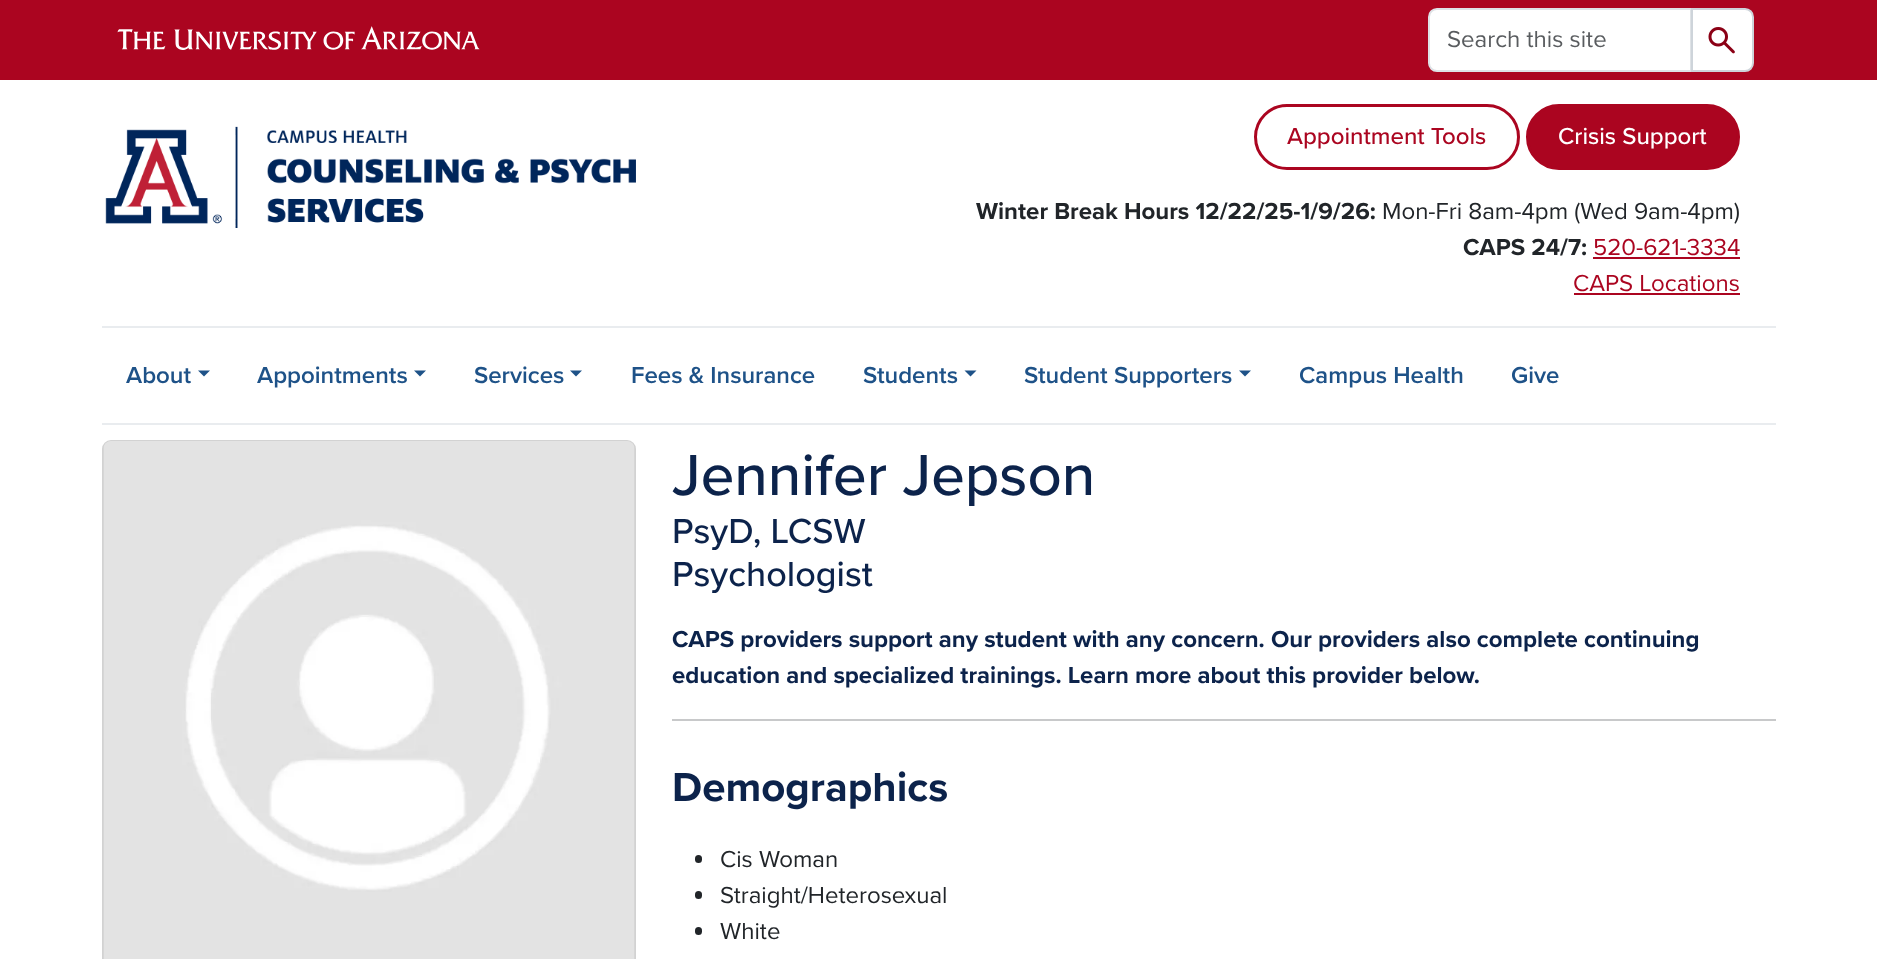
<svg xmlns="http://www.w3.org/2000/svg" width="1877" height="959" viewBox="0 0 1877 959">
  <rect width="100%" height="100%" fill="#fff"/>
  <path d="M0 0h1877v80H0z" fill="#ab0520"/>
  <image x="117" y="26" width="363" height="24" href="img/1.png"/>
  <path d="M1437 9H1691V71H1437C1432.5 71 1429 67.5 1429 63V17C1429 12.5 1432.5 9 1437 9Z" fill="#fff" stroke="#dee2e6" stroke-width="2"/>
  <path d="M1692 9H1745C1749.5 9 1753 12.5 1753 17V63C1753 67.5 1749.5 71 1745 71H1692Z" fill="#fff" stroke="#ced4da" stroke-width="2"/>
  <image x="1708" y="27" width="27" height="27" href="img/2.png"/>
  <image x="105" y="126" width="531" height="102" href="img/3.png"/>
  <rect x="1255.5" y="105.5" width="263" height="63" rx="31.5" fill="none" stroke="#ab0520" stroke-width="3"/>
  <rect x="1527.5" y="105.5" width="211" height="63" rx="31.5" fill="#ab0520" stroke="#ab0520" stroke-width="3"/>
  <path d="M1593 257h147v2H1593z" fill="#ab0520"/>
  <path d="M1574 293h166v2H1574z" fill="#ab0520"/>
  <path d="M102 326h1674v2H102z" fill="#e9ecef"/>
  <path d="M102 423h1674v2H102z" fill="#e9ecef"/>
  <path d="M198 370.5H210L204 376.5Z" fill="#1e5288"/>
  <path d="M414 370.5H426L420 376.5Z" fill="#1e5288"/>
  <path d="M570 370.5H582L576 376.5Z" fill="#1e5288"/>
  <path d="M964.5 370.5H976.5L970.5 376.5Z" fill="#1e5288"/>
  <path d="M1239 370.5H1251L1245 376.5Z" fill="#1e5288"/>
  <rect x="103" y="441" width="532" height="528" rx="8" fill="none" stroke="#d2d2d2" stroke-width="2"/>
  <image x="103" y="441" width="532" height="518" href="img/4.png"/>
  <path d="M672 719h1104v2H672z" fill="#c8c9ca"/>
  <rect x="695" y="855" width="7" height="8" rx="3.5" fill="#212529"/>
  <rect x="695" y="891" width="7" height="8" rx="3.5" fill="#212529"/>
  <rect x="695" y="927" width="7" height="8" rx="3.5" fill="#212529"/>
  <text x="1447" y="47" font-family="Proxima Nova" font-size="24" fill="#595c5f">Search this site</text>
  <text x="1287" y="144" font-family="Proxima Nova" font-size="24" font-weight="500" fill="#ab0520">Appointment Tools</text>
  <text x="1558" y="144" font-family="Proxima Nova" font-size="24" font-weight="500" fill="#fff">Crisis Support</text>
  <text x="976" y="219" font-family="Proxima Nova" font-size="24" font-weight="bold" fill="#212529">Winter Break Hours 12/22/25-1/9/26:</text>
  <text x="1382" y="219" font-family="Proxima Nova" font-size="24" fill="#212529">Mon-Fri 8am-4pm (Wed 9am-4pm)</text>
  <text x="1463" y="255" font-family="Proxima Nova" font-size="24" font-weight="bold" fill="#212529">CAPS 24/7:</text>
  <g font-family="Proxima Nova" font-size="24" fill="#ab0520">
    <text x="1593" y="255">520-621-3334</text>
    <text x="1573" y="291">CAPS Locations</text>
  </g>
  <g font-family="Proxima Nova" font-size="24" font-weight="600" fill="#1e5288">
    <text x="126" y="383">About</text>
    <text x="257" y="383">Appointments</text>
    <text x="474" y="383">Services</text>
    <text x="631" y="383">Fees &amp; Insurance</text>
    <text x="863" y="383">Students</text>
    <text x="1024" y="383">Student Supporters</text>
    <text x="1299" y="383">Campus Health</text>
    <text x="1511" y="383">Give</text>
  </g>
  <text x="672" y="495" font-family="Proxima Nova" font-size="60" font-weight="500" fill="#0c234b">Jennifer Jepson</text>
  <g font-family="Proxima Nova" font-size="36" font-weight="500" fill="#0c234b">
    <text x="672" y="543">PsyD, LCSW</text>
    <text x="672" y="586">Psychologist</text>
  </g>
  <g font-family="Proxima Nova" font-size="24" font-weight="bold" fill="#0c234b">
    <text x="672" y="647">CAPS providers support any student with any concern. Our providers also complete continuing</text>
    <text x="672" y="683">education and specialized trainings. Learn more about this provider below.</text>
  </g>
  <text x="672" y="801" font-family="Proxima Nova" font-size="42" font-weight="bold" fill="#0c234b">Demographics</text>
  <g font-family="Proxima Nova" font-size="24" fill="#212529">
    <text x="720" y="867">Cis Woman</text>
    <text x="720" y="903">Straight/Heterosexual</text>
    <text x="720" y="939">White</text>
  </g>
</svg>
